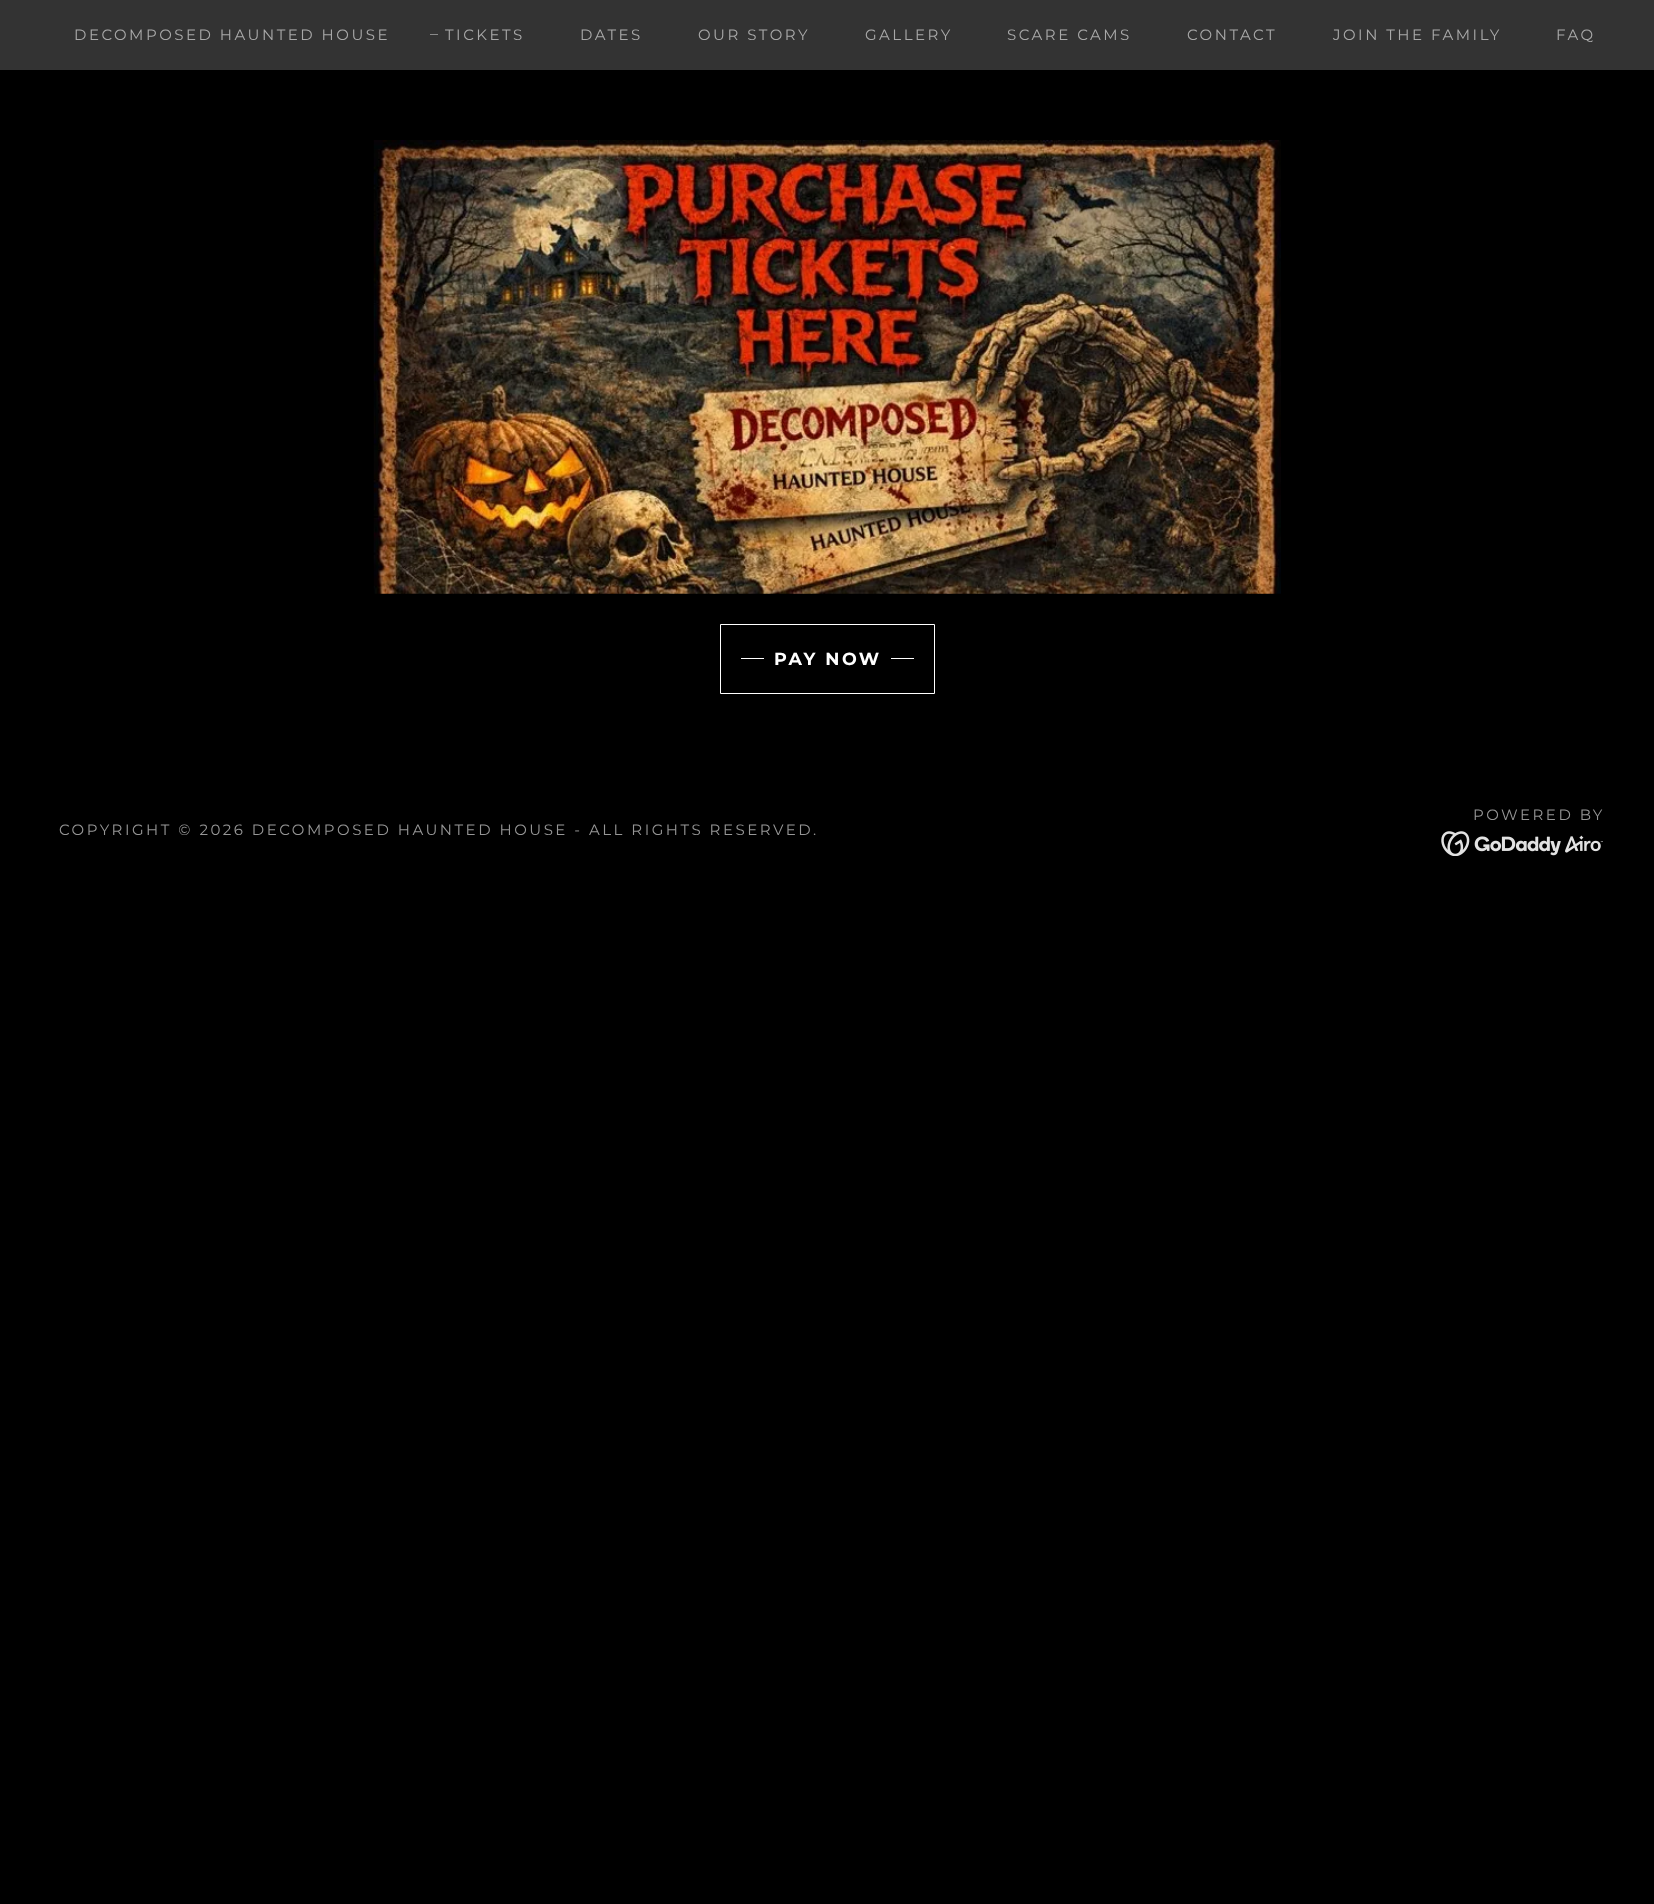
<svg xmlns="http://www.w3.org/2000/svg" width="1654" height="1904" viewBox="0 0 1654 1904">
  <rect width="100%" height="100%" fill="#000"/>
  <path d="M0 0h1654v70H0z" fill="#333"/>
  <path d="M430 34h8v1H430z" fill="#898989"/>
  <image x="373" y="140" width="908" height="454" href="img/1.png"/>
  <path d="M720.5 624.5h214v69H720.5z" fill="none" stroke="#fff"/>
  <path d="M741 658h23v1H741z" fill="#fff"/>
  <path d="M891 658h23v1H891z" fill="#fff"/>
  <image x="1441" y="831" width="162" height="25" href="img/2.png"/>
  <g font-family="Montserrat" font-size="15" letter-spacing="2.5" fill="#a9a9a9">
    <text x="74" y="40">DECOMPOSED HAUNTED HOUSE</text>
    <text x="445" y="40">TICKETS</text>
    <text x="580" y="40">DATES</text>
    <text x="698" y="40">OUR STORY</text>
    <text x="865" y="40">GALLERY</text>
    <text x="1007" y="40">SCARE CAMS</text>
    <text x="1187" y="40">CONTACT</text>
    <text x="1333" y="40">JOIN THE FAMILY</text>
    <text x="1556" y="40">FAQ</text>
  </g>
  <text x="774" y="665" font-family="Montserrat" font-size="17.5" font-weight="bold" letter-spacing="2.5" fill="#fff">PAY NOW</text>
  <g font-family="Montserrat" font-size="15" letter-spacing="2.5" fill="#969696">
    <text x="1473" y="820">POWERED BY</text>
    <text x="59" y="835">COPYRIGHT © 2026 DECOMPOSED HAUNTED HOUSE - ALL RIGHTS RESERVED.</text>
  </g>
</svg>
